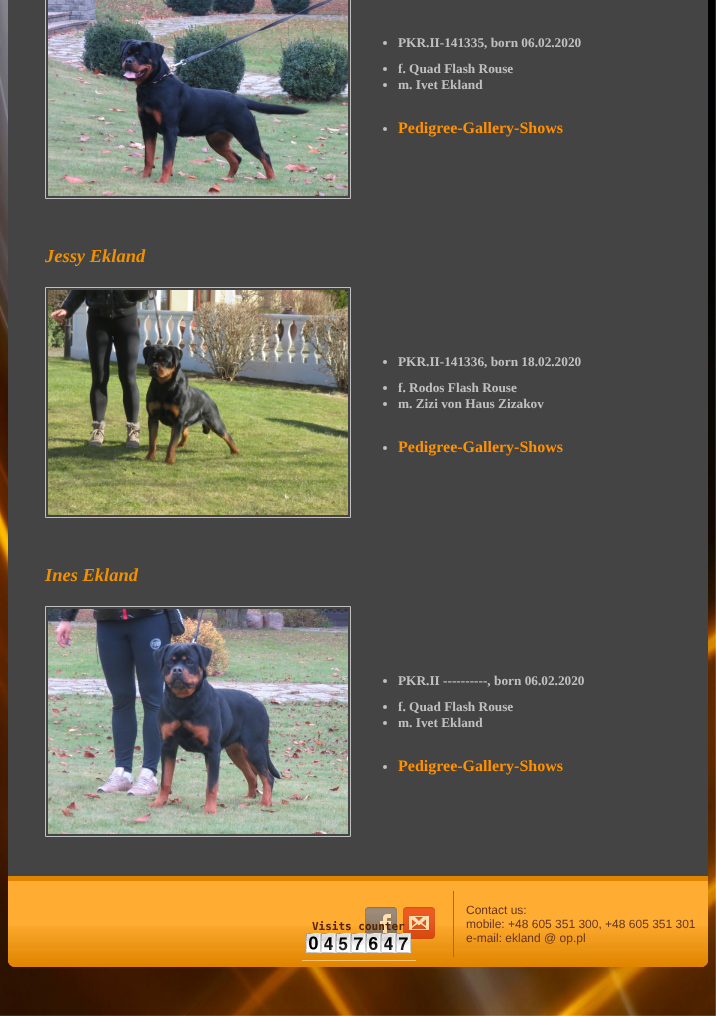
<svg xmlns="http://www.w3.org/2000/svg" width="716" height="1016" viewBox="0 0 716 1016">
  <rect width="100%" height="100%" fill="#fff"/>
  <image x="0" y="0" width="716" height="1016" href="img/1.png"/>
  <path d="M8 0h700v876H8z" fill="#444"/>
  <path d="M45.5 -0.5h305v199H45.5z" fill="none" stroke="#c0c0c0"/>
  <image x="48" y="0" width="300" height="196" href="img/2.png"/>
  <circle cx="385" cy="43" r="2" fill="#c0c0c0"/>
  <circle cx="385" cy="69" r="2" fill="#c0c0c0"/>
  <circle cx="385" cy="85" r="2" fill="#c0c0c0"/>
  <circle cx="385" cy="129" r="2" fill="#c0c0c0"/>
  <path d="M45.5 287.5h305v230H45.5z" fill="none" stroke="#c0c0c0"/>
  <image x="48" y="290" width="300" height="225" href="img/3.png"/>
  <circle cx="385" cy="362" r="2" fill="#c0c0c0"/>
  <circle cx="385" cy="388" r="2" fill="#c0c0c0"/>
  <circle cx="385" cy="404" r="2" fill="#c0c0c0"/>
  <circle cx="385" cy="448" r="2" fill="#c0c0c0"/>
  <path d="M45.5 606.5h305v230H45.5z" fill="none" stroke="#c0c0c0"/>
  <image x="48" y="609" width="300" height="225" href="img/4.png"/>
  <circle cx="385" cy="681" r="2" fill="#c0c0c0"/>
  <circle cx="385" cy="707" r="2" fill="#c0c0c0"/>
  <circle cx="385" cy="723" r="2" fill="#c0c0c0"/>
  <circle cx="385" cy="767" r="2" fill="#c0c0c0"/>
  <path d="M8 876h700v5H8z" fill="#df8500"/>
  <path d="M8 881H708V960C708 964 705 967 701 967H15C11 967 8 964 8 960Z" fill="#ffac32"/>
  <image x="8" y="926" width="700" height="41" href="img/5.png"/>
  <image x="365" y="907" width="32" height="26" href="img/6.png"/>
  <image x="403" y="907" width="32" height="32" href="img/7.png"/>
  <path d="M453 891h1v66H453z" fill="#b85959"/>
  <path d="M302 960h114v1H302z" fill="#ffc268"/>
  <image x="306" y="933" width="15" height="20" href="img/8.png"/>
  <image x="321" y="933" width="15" height="20" href="img/9.png"/>
  <image x="336" y="933" width="15" height="20" href="img/10.png"/>
  <image x="351" y="933" width="15" height="20" href="img/11.png"/>
  <image x="366" y="933" width="15" height="20" href="img/12.png"/>
  <image x="381" y="933" width="15" height="20" href="img/9.png"/>
  <image x="396" y="933" width="15" height="20" href="img/11.png"/>
  <g font-family="Liberation Serif" font-size="13.3" font-weight="bold" fill="#c0c0c0">
    <text x="398" y="47">PKR.II-141335, born 06.02.2020</text>
    <text x="398" y="73">f. Quad Flash Rouse</text>
    <text x="398" y="89">m. Ivet Ekland</text>
  </g>
  <text x="398" y="133" font-family="Liberation Serif" font-size="16" font-weight="bold" fill="#ff9000">Pedigree-Gallery-Shows</text>
  <text x="45" y="262" font-family="Liberation Serif" font-size="18.5" font-weight="bold" font-style="italic" fill="#f09000">Jessy Ekland</text>
  <g font-family="Liberation Serif" font-size="13.3" font-weight="bold" fill="#c0c0c0">
    <text x="398" y="366">PKR.II-141336, born 18.02.2020</text>
    <text x="398" y="392">f. Rodos Flash Rouse</text>
    <text x="398" y="408">m. Zizi von Haus Zizakov</text>
  </g>
  <text x="398" y="452" font-family="Liberation Serif" font-size="16" font-weight="bold" fill="#ff9000">Pedigree-Gallery-Shows</text>
  <text x="45" y="581" font-family="Liberation Serif" font-size="18.5" font-weight="bold" font-style="italic" fill="#f09000">Ines Ekland</text>
  <g font-family="Liberation Serif" font-size="13.3" font-weight="bold" fill="#c0c0c0">
    <text x="398" y="685">PKR.II ----------, born 06.02.2020</text>
    <text x="398" y="711">f. Quad Flash Rouse</text>
    <text x="398" y="727">m. Ivet Ekland</text>
  </g>
  <text x="398" y="771" font-family="Liberation Serif" font-size="16" font-weight="bold" fill="#ff9000">Pedigree-Gallery-Shows</text>
  <g font-family="Liberation Sans" font-size="12" fill="#663622">
    <text x="466" y="914">Contact us:</text>
    <text x="466" y="928">mobile: +48 605 351 300, +48 605 351 301</text>
    <text x="466" y="942">e-mail: ekland @ op.pl</text>
  </g>
  <text x="312" y="930" font-family="DejaVu Sans Mono" font-size="11" font-weight="bold" fill="#520">Visits counter</text>
</svg>
